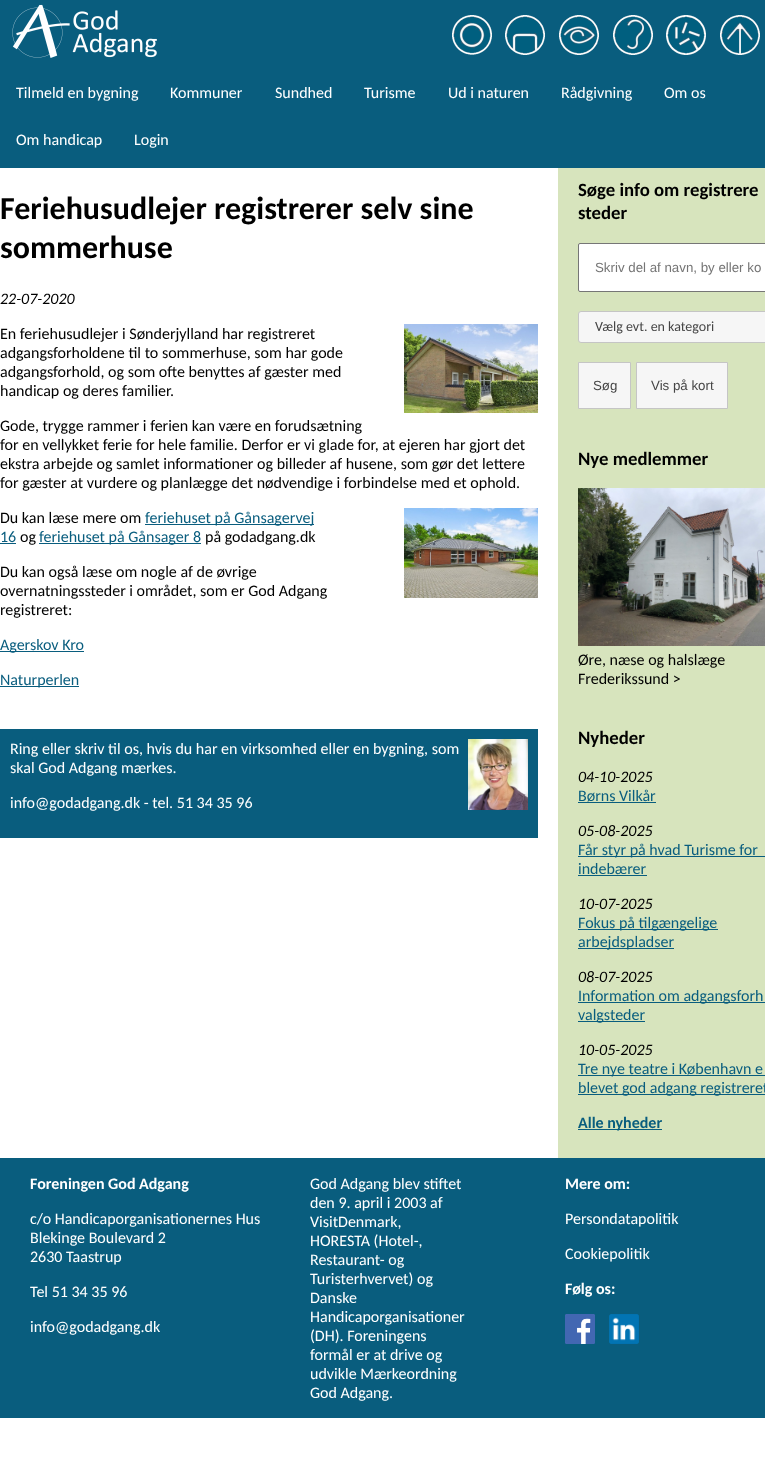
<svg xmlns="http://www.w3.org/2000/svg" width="765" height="1461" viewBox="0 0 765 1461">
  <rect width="100%" height="100%" fill="#fff"/>
  <path d="M0 0h765v168H0z" fill="#095d7e"/>
  <image x="12" y="4" width="145" height="54" href="img/1.png"/>
  <image x="452" y="15" width="40" height="40" href="img/2.png"/>
  <image x="505" y="15" width="40" height="40" href="img/3.png"/>
  <image x="559" y="15" width="40" height="40" href="img/4.png"/>
  <image x="613" y="15" width="40" height="40" href="img/5.png"/>
  <image x="666" y="15" width="40" height="40" href="img/6.png"/>
  <image x="720" y="15" width="40" height="40" href="img/7.png"/>
  <image x="404" y="324" width="134" height="89" href="img/8.png"/>
  <path d="M145 524h169v1H145z" fill="#095d7e"/>
  <image x="404" y="508" width="134" height="90" href="img/9.png"/>
  <path d="M0 543h16v1H0z" fill="#095d7e"/>
  <path d="M39 543h162v1H39z" fill="#095d7e"/>
  <path d="M0 651h84v1H0z" fill="#095d7e"/>
  <path d="M0 686h79v1H0z" fill="#095d7e"/>
  <path d="M0 729h538v109H0z" fill="#095d7e"/>
  <image x="468" y="739" width="60" height="71" href="img/10.png"/>
  <path d="M558 168h207v990H558z" fill="#d7e4bd"/>
  <rect x="578.5" y="243.5" width="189" height="48" rx="1.5" fill="#fff" stroke="#767676"/>
  <rect x="578.5" y="311.5" width="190" height="31" rx="2.5" fill="#f6f6f6" stroke="#c5c5c5"/>
  <path d="M578.5 362.5h52v46H578.5z" fill="#f6f6f6" stroke="#c5c5c5"/>
  <path d="M636.5 362.5h91v46H636.5z" fill="#f6f6f6" stroke="#c5c5c5"/>
  <image x="578" y="488" width="187" height="158" href="img/11.png"/>
  <path d="M578 802h78v1H578z" fill="#095d7e"/>
  <path d="M578 856h187v1H578z" fill="#095d7e"/>
  <path d="M578 875h69v1H578z" fill="#095d7e"/>
  <path d="M578 929h140v1H578z" fill="#095d7e"/>
  <path d="M578 948h96v1H578z" fill="#095d7e"/>
  <path d="M578 1002h187v1H578z" fill="#095d7e"/>
  <path d="M578 1021h67v1H578z" fill="#095d7e"/>
  <path d="M578 1075h187v1H578z" fill="#095d7e"/>
  <path d="M578 1094h187v1H578z" fill="#095d7e"/>
  <path d="M578 1129h84v1H578z" fill="#095d7e"/>
  <path d="M0 1158h765v260H0z" fill="#095d7e"/>
  <image x="565" y="1314" width="30" height="30" href="img/12.png"/>
  <image x="609" y="1314" width="30" height="30" href="img/13.png"/>
  <g font-family="Carlito" font-size="16" fill="#fff">
    <text x="16" y="98">Tilmeld en bygning</text>
    <text x="170" y="98">Kommuner</text>
    <text x="275" y="98">Sundhed</text>
    <text x="364" y="98">Turisme</text>
    <text x="448" y="98">Ud i naturen</text>
    <text x="561" y="98">Rådgivning</text>
    <text x="664" y="98">Om os</text>
    <text x="16" y="145">Om handicap</text>
    <text x="134" y="145">Login</text>
  </g>
  <g font-family="Carlito" font-size="32" font-weight="bold" fill="#000">
    <text x="0" y="219">Feriehusudlejer registrerer selv sine</text>
    <text x="0" y="258">sommerhuse</text>
  </g>
  <text x="0" y="304" font-family="Carlito" font-size="16" font-style="italic" fill="#000">22-07-2020</text>
  <g font-family="Carlito" font-size="16" fill="#000">
    <text x="0" y="339">En feriehusudlejer i Sønderjylland har registreret</text>
    <text x="0" y="358">adgangsforholdene til to sommerhuse, som har gode</text>
    <text x="0" y="377">adgangsforhold, og som ofte benyttes af gæster med</text>
    <text x="0" y="396">handicap og deres familier.</text>
    <text x="0" y="431">Gode, trygge rammer i ferien kan være en forudsætning</text>
    <text x="0" y="450">for en vellykket ferie for hele familie. Derfor er vi glade for, at ejeren har gjort det</text>
    <text x="0" y="469">ekstra arbejde og samlet informationer og billeder af husene, som gør det lettere</text>
    <text x="0" y="488">for gæster at vurdere og planlægge det nødvendige i forbindelse med et ophold.</text>
    <text x="0" y="523">Du kan læse mere om</text>
  </g>
  <g font-family="Carlito" font-size="16" fill="#095d7e">
    <text x="145" y="523">feriehuset på Gånsagervej</text>
    <text x="0" y="542">16</text>
  </g>
  <text x="20" y="542" font-family="Carlito" font-size="16" fill="#000">og</text>
  <text x="39" y="542" font-family="Carlito" font-size="16" fill="#095d7e">feriehuset på Gånsager 8</text>
  <g font-family="Carlito" font-size="16" fill="#000">
    <text x="205" y="542">på godadgang.dk</text>
    <text x="0" y="577">Du kan også læse om nogle af de øvrige</text>
    <text x="0" y="596">overnatningssteder i området, som er God Adgang</text>
    <text x="0" y="615">registreret:</text>
  </g>
  <g font-family="Carlito" font-size="16" fill="#095d7e">
    <text x="0" y="650">Agerskov Kro</text>
    <text x="0" y="685">Naturperlen</text>
  </g>
  <g font-family="Carlito" font-size="16" fill="#fff">
    <text x="10" y="754">Ring eller skriv til os, hvis du har en virksomhed eller en bygning, som</text>
    <text x="10" y="773">skal God Adgang mærkes.</text>
    <text x="10" y="808">info@godadgang.dk - tel. 51 34 35 96</text>
  </g>
  <g font-family="Carlito" font-size="18.75" font-weight="bold" fill="#000">
    <text x="578" y="196">Søge info om registrere</text>
    <text x="578" y="219">steder</text>
  </g>
  <text x="595" y="272" font-family="Liberation Sans" font-size="13.3" fill="#757575">Skriv del af navn, by eller ko</text>
  <text x="595" y="331" font-family="Carlito" font-size="14" fill="#454545">Vælg evt. en kategori</text>
  <g font-family="Liberation Sans" font-size="13.3" fill="#454545">
    <text x="593" y="390">Søg</text>
    <text x="651" y="390">Vis på kort</text>
  </g>
  <text x="578" y="465" font-family="Carlito" font-size="18.75" font-weight="bold" fill="#000">Nye medlemmer</text>
  <g font-family="Carlito" font-size="16" fill="#000">
    <text x="578" y="665">Øre, næse og halslæge</text>
    <text x="578" y="684">Frederikssund &gt;</text>
  </g>
  <text x="578" y="744" font-family="Carlito" font-size="18.75" font-weight="bold" fill="#000">Nyheder</text>
  <text x="578" y="782" font-family="Carlito" font-size="16" font-style="italic" fill="#000">04-10-2025</text>
  <text x="578" y="801" font-family="Carlito" font-size="16" fill="#095d7e">Børns Vilkår</text>
  <text x="578" y="836" font-family="Carlito" font-size="16" font-style="italic" fill="#000">05-08-2025</text>
  <g font-family="Carlito" font-size="16" fill="#095d7e">
    <text x="578" y="855">Får styr på hvad Turisme for</text>
    <text x="578" y="874">indebærer</text>
  </g>
  <text x="578" y="909" font-family="Carlito" font-size="16" font-style="italic" fill="#000">10-07-2025</text>
  <g font-family="Carlito" font-size="16" fill="#095d7e">
    <text x="578" y="928">Fokus på tilgængelige</text>
    <text x="578" y="947">arbejdspladser</text>
  </g>
  <text x="578" y="982" font-family="Carlito" font-size="16" font-style="italic" fill="#000">08-07-2025</text>
  <g font-family="Carlito" font-size="16" fill="#095d7e">
    <text x="578" y="1001">Information om adgangsforh</text>
    <text x="578" y="1020">valgsteder</text>
  </g>
  <text x="578" y="1055" font-family="Carlito" font-size="16" font-style="italic" fill="#000">10-05-2025</text>
  <g font-family="Carlito" font-size="16" fill="#095d7e">
    <text x="578" y="1074">Tre nye teatre i København e</text>
    <text x="578" y="1093">blevet god adgang registreret</text>
  </g>
  <text x="578" y="1128" font-family="Carlito" font-size="16" font-weight="bold" fill="#095d7e">Alle nyheder</text>
  <text x="30" y="1189" font-family="Carlito" font-size="16" font-weight="bold" fill="#fff">Foreningen God Adgang</text>
  <g font-family="Carlito" font-size="16" fill="#fff">
    <text x="30" y="1224">c/o Handicaporganisationernes Hus</text>
    <text x="30" y="1243">Blekinge Boulevard 2</text>
    <text x="30" y="1262">2630 Taastrup</text>
    <text x="30" y="1297">Tel 51 34 35 96</text>
    <text x="30" y="1332">info@godadgang.dk</text>
    <text x="310" y="1189">God Adgang blev stiftet</text>
    <text x="310" y="1208">den 9. april i 2003 af</text>
    <text x="310" y="1227">VisitDenmark,</text>
    <text x="310" y="1246">HORESTA (Hotel-,</text>
    <text x="310" y="1265">Restaurant- og</text>
    <text x="310" y="1284">Turisterhvervet) og</text>
    <text x="310" y="1303">Danske</text>
    <text x="310" y="1322">Handicaporganisationer</text>
    <text x="310" y="1341">(DH). Foreningens</text>
    <text x="310" y="1360">formål er at drive og</text>
    <text x="310" y="1379">udvikle Mærkeordning</text>
    <text x="310" y="1398">God Adgang.</text>
  </g>
  <text x="565" y="1189" font-family="Carlito" font-size="16" font-weight="bold" fill="#fff">Mere om:</text>
  <g font-family="Carlito" font-size="16" fill="#fff">
    <text x="565" y="1224">Persondatapolitik</text>
    <text x="565" y="1259">Cookiepolitik</text>
  </g>
  <text x="565" y="1294" font-family="Carlito" font-size="16" font-weight="bold" fill="#fff">Følg os:</text>
</svg>
